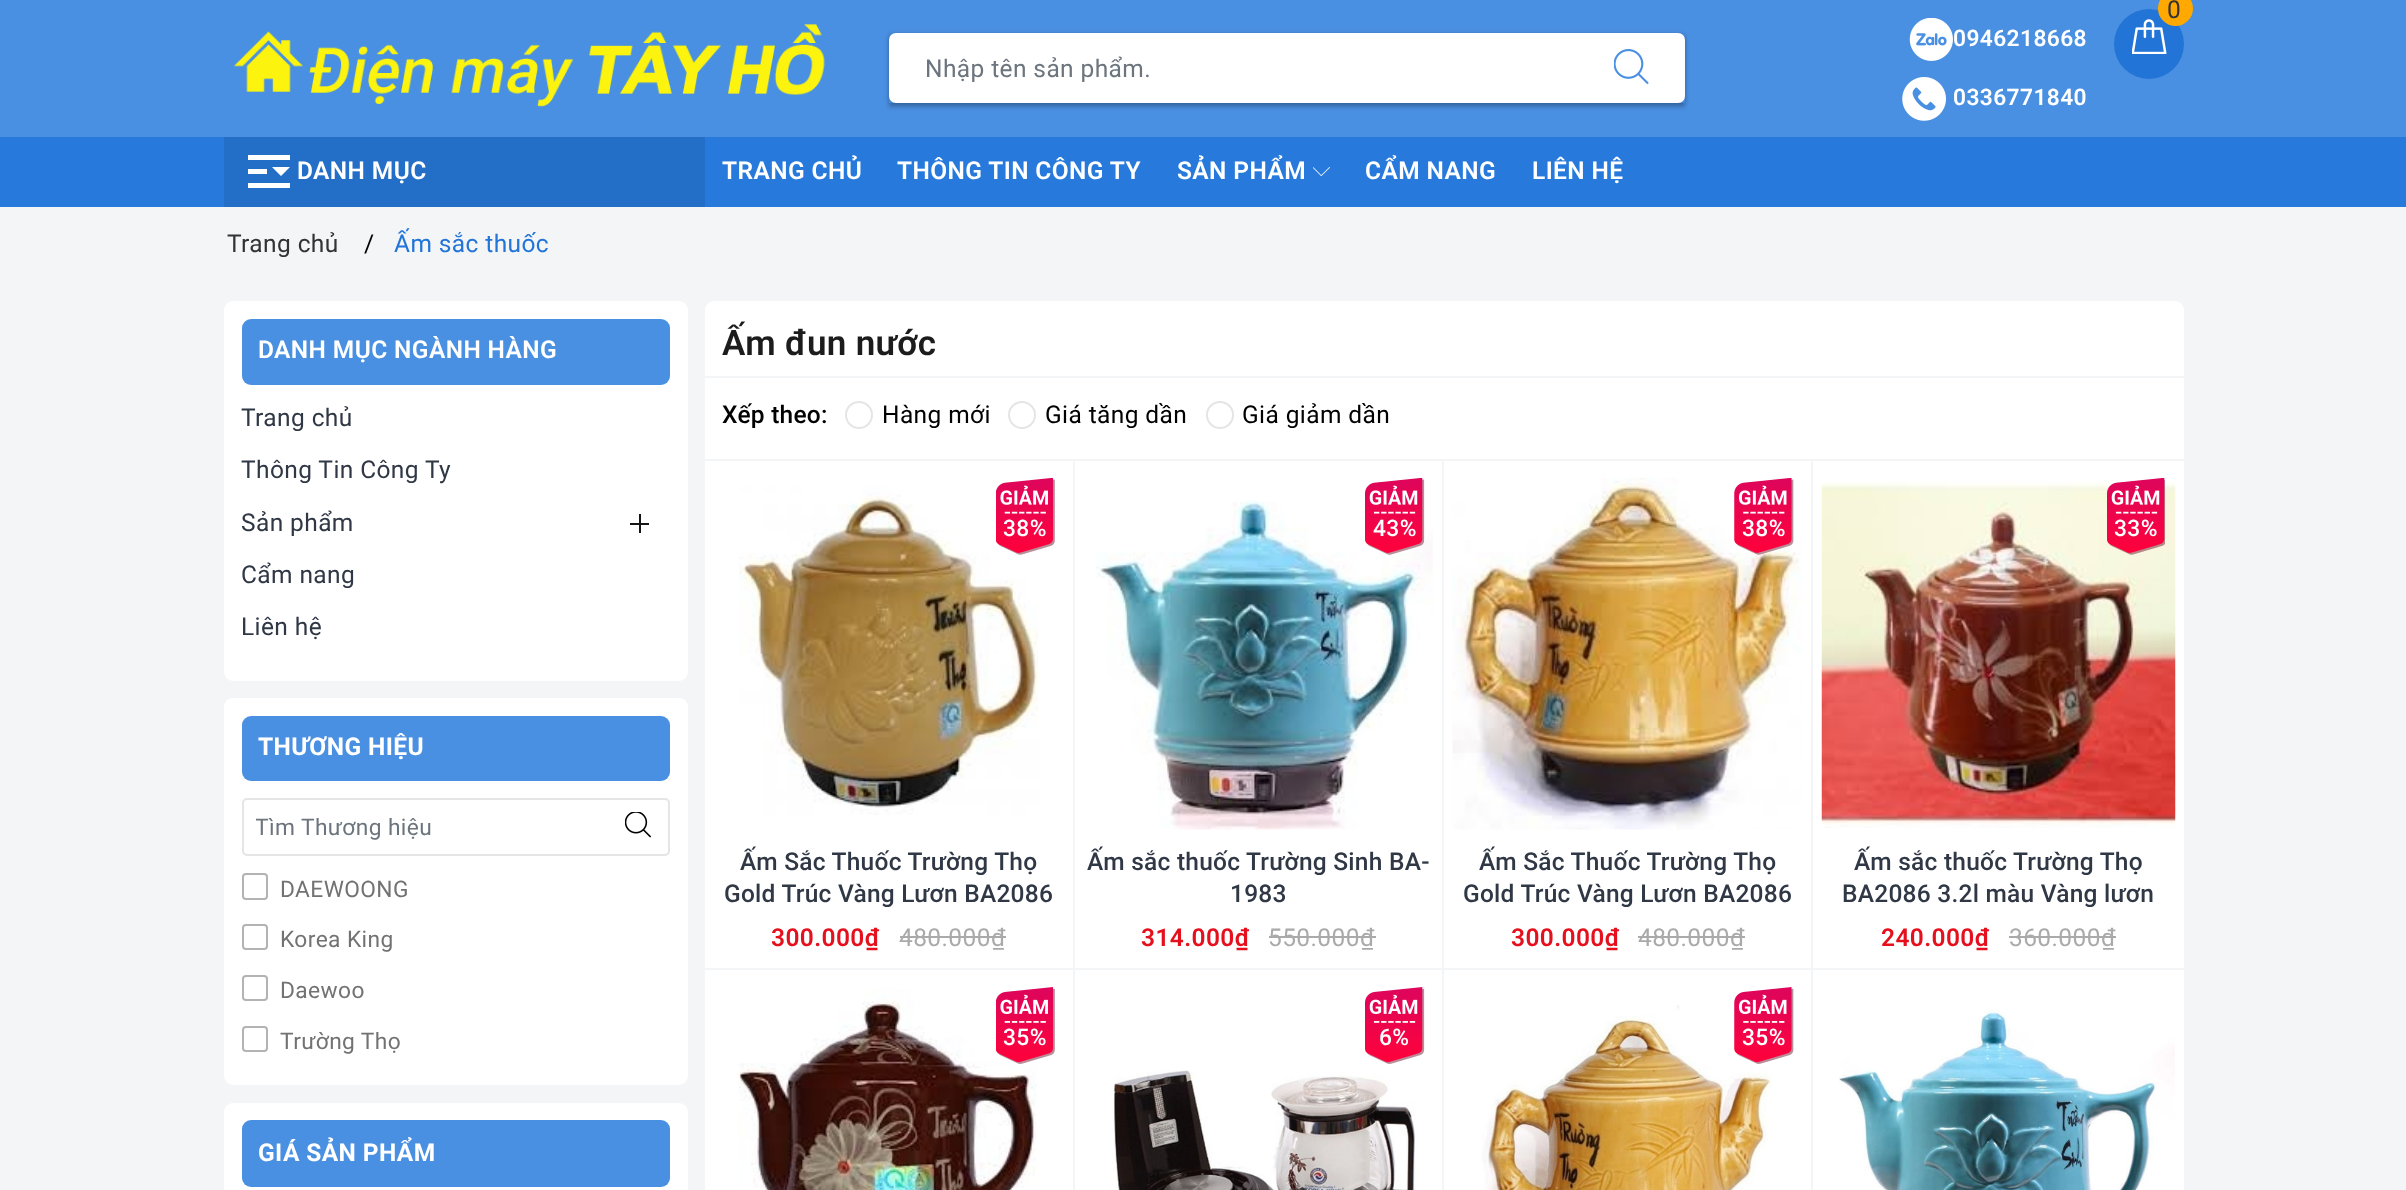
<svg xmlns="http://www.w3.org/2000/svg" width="2406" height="1190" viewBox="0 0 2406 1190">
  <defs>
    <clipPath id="clip1"><path d="M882 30H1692V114H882ZM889 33H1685V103H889Z" clip-rule="evenodd"/></clipPath>
    <clipPath id="clip2"><path d="M256 814h343v26H256z"/></clipPath>
  </defs>
  <rect width="100%" height="100%" fill="#f3f5f7"/>
  <path d="M0 0h2406v137H0z" fill="#4a90e2"/>
  <image x="234" y="24" width="591" height="83" href="img/1.png"/>
  <g clip-path="url(#clip1)">
    <path d="M889 37h796v70H889z" fill="#0000003d" filter="blur(2px)"/>
  </g>
  <path d="M889 33h796v70H889z" fill="#0000001f" filter="blur(2px)"/>
  <path d="M896 34H1578V102H896C892.5 102 890 99.5 890 96V40C890 36.5 892.5 34 896 34Z" fill="#fff" stroke="#fff" stroke-width="2"/>
  <path d="M1578 34H1678C1681.5 34 1684 36.5 1684 40V96C1684 99.5 1681.5 102 1678 102H1578Z" fill="#fff" stroke="#fff" stroke-width="2"/>
  <image x="1614" y="49" width="35" height="35" href="img/2.png"/>
  <circle cx="2149" cy="44" r="35" fill="#2275d7"/>
  <image x="2132" y="19" width="35" height="35" href="img/3.png"/>
  <circle cx="2175.5" cy="8.5" r="17.5" fill="#ffa800"/>
  <image x="1909" y="18" width="44" height="43" href="img/4.png"/>
  <image x="1902" y="77" width="44" height="44" href="img/5.png"/>
  <path d="M0 137h2406v70H0z" fill="#277adc"/>
  <path d="M224 137h481v70H224z" fill="#236ec6"/>
  <path d="M248 188H290V183H248ZM248 174H267V169H248ZM248 155V160H290V155ZM272 167L281 176L290 167Z" fill="#fff"/>
  <image x="1313" y="167" width="17" height="9" href="img/6.png"/>
  <rect x="224" y="301" width="464" height="380" rx="9" fill="#fff"/>
  <rect x="242" y="319" width="428" height="66" rx="9" fill="#4a90e2"/>
  <path d="M639 514h2v19H639z" fill="#141414"/>
  <path d="M630 523h19v2H630z" fill="#141414"/>
  <rect x="224" y="698" width="464" height="387" rx="9" fill="#fff"/>
  <rect x="242" y="716" width="428" height="65" rx="9" fill="#4a90e2"/>
  <rect x="243" y="799" width="426" height="56" rx="4" fill="none" stroke="#e5e5e5" stroke-width="2"/>
  <image x="625" y="812" width="26" height="26" href="img/7.png"/>
  <rect x="243" y="874" width="24" height="25" rx="3" fill="none" stroke="#b3b3b3" stroke-width="2"/>
  <rect x="243" y="925" width="24" height="24" rx="3" fill="none" stroke="#b3b3b3" stroke-width="2"/>
  <rect x="243" y="976" width="24" height="24" rx="3" fill="none" stroke="#b3b3b3" stroke-width="2"/>
  <rect x="243" y="1027" width="24" height="24" rx="3" fill="none" stroke="#b3b3b3" stroke-width="2"/>
  <rect x="224" y="1103" width="464" height="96" rx="9" fill="#fff"/>
  <rect x="242" y="1120" width="428" height="67" rx="9" fill="#4a90e2"/>
  <rect x="705" y="301" width="1479" height="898" rx="9" fill="#fff"/>
  <path d="M705 376h1479v2H705z" fill="#f3f5f7"/>
  <path d="M705 459h1479v2H705z" fill="#f3f5f7"/>
  <circle cx="859" cy="415" r="13" fill="none" stroke="#e5e5e5" stroke-width="2"/>
  <circle cx="1022" cy="415" r="13" fill="none" stroke="#e5e5e5" stroke-width="2"/>
  <circle cx="1220" cy="415" r="13" fill="none" stroke="#e5e5e5" stroke-width="2"/>
  <path d="M1073 460h2v730H1073z" fill="#f3f5f7"/>
  <path d="M705 968h370v2H705z" fill="#f3f5f7"/>
  <image x="739" y="486" width="301" height="329" href="img/8.png"/>
  <image x="996" y="478" width="59" height="77" href="img/9.png"/>
  <path d="M900 936h106v2H900z" fill="#aaa"/>
  <path d="M1442 460h2v730H1442z" fill="#f3f5f7"/>
  <path d="M1075 968h369v2H1075z" fill="#f3f5f7"/>
  <image x="1096" y="500" width="337" height="330" href="img/10.png"/>
  <image x="1365" y="478" width="60" height="77" href="img/11.png"/>
  <path d="M1269 936h107v2H1269z" fill="#aaa"/>
  <path d="M1811 460h2v730H1811z" fill="#f3f5f7"/>
  <path d="M1444 968h740v2H1444z" fill="#f3f5f7"/>
  <image x="1452" y="478" width="349" height="352" href="img/12.png"/>
  <image x="1734" y="478" width="60" height="77" href="img/13.png"/>
  <path d="M1638 936h107v2H1638z" fill="#aaa"/>
  <image x="1821" y="481" width="355" height="347" href="img/14.png"/>
  <image x="2107" y="478" width="58" height="77" href="img/15.png"/>
  <path d="M2009 936h107v2H2009z" fill="#aaa"/>
  <image x="738" y="989" width="299" height="201" href="img/16.png"/>
  <image x="996" y="987" width="59" height="77" href="img/17.png"/>
  <image x="1365" y="987" width="60" height="77" href="img/18.png"/>
  <image x="1110" y="1070" width="307" height="120" href="img/19.png"/>
  <image x="1482" y="1005" width="291" height="185" href="img/20.png"/>
  <image x="1734" y="987" width="60" height="77" href="img/21.png"/>
  <image x="1839" y="1009" width="336" height="181" href="img/22.png"/>
  <text x="925" y="77" font-family="Roboto" font-size="24.5" letter-spacing="0.4" fill="#6c757d">Nhập tên sản phẩm.</text>
  <text x="2167" y="18" font-family="Roboto" font-size="24.5" letter-spacing="0.4" fill="#333">0</text>
  <g font-family="Roboto" font-size="22.75" font-weight="600" letter-spacing="0.4" fill="#fff">
    <text x="1953" y="46">0946218668</text>
    <text x="1953" y="105">0336771840</text>
  </g>
  <g font-family="Roboto" font-size="24.5" font-weight="600" letter-spacing="0.4" fill="#fff">
    <text x="297" y="179">DANH MỤC</text>
    <text x="722" y="179">TRANG CHỦ</text>
    <text x="897" y="179">THÔNG TIN CÔNG TY</text>
    <text x="1177" y="179">SẢN PHẨM</text>
    <text x="1365" y="179">CẨM NANG</text>
    <text x="1532" y="179">LIÊN HỆ</text>
  </g>
  <text x="227" y="252" font-family="Roboto" font-size="24.5" letter-spacing="0.4" fill="#333">Trang chủ</text>
  <text x="364" y="252" font-family="Roboto" font-size="24.5" letter-spacing="0.4" fill="#000">/</text>
  <text x="394" y="252" font-family="Roboto" font-size="24.5" letter-spacing="0.4" fill="#2275d7">Ấm sắc thuốc</text>
  <text x="258" y="358" font-family="Roboto" font-size="24.5" font-weight="600" letter-spacing="0.4" fill="#fff">DANH MỤC NGÀNH HÀNG</text>
  <g font-family="Roboto" font-size="24.5" letter-spacing="0.4" fill="#303846">
    <text x="241" y="426">Trang chủ</text>
    <text x="241" y="478">Thông Tin Công Ty</text>
    <text x="241" y="531">Sản phẩm</text>
    <text x="241" y="583">Cẩm nang</text>
    <text x="241" y="635">Liên hệ</text>
  </g>
  <text x="258" y="755" font-family="Roboto" font-size="24.5" font-weight="bold" letter-spacing="0.4" fill="#fff">THƯƠNG HIỆU</text>
  <g clip-path="url(#clip2)">
    <text x="255" y="835" font-family="Roboto" font-size="22.75" letter-spacing="0.4" fill="#6c757d">Tìm Thương hiệu</text>
  </g>
  <g font-family="Roboto" font-size="22.75" letter-spacing="0.4" fill="#727272">
    <text x="280" y="897">DAEWOONG</text>
    <text x="280" y="947">Korea King</text>
    <text x="280" y="998">Daewoo</text>
    <text x="280" y="1049">Trường Thọ</text>
  </g>
  <text x="258" y="1161" font-family="Roboto" font-size="24.5" font-weight="bold" letter-spacing="0.4" fill="#fff">GIÁ SẢN PHẨM</text>
  <text x="722" y="355" font-family="Roboto" font-size="35" font-weight="600" letter-spacing="0.3" fill="#1c1c1c">Ấm đun nước</text>
  <text x="722" y="423" font-family="Roboto" font-size="24.5" font-weight="500" letter-spacing="0.25" fill="#000">Xếp theo:</text>
  <g font-family="Roboto" font-size="24.5" letter-spacing="0.4" fill="#000">
    <text x="882" y="423">Hàng mới</text>
    <text x="1045" y="423">Giá tăng dần</text>
    <text x="1242" y="423">Giá giảm dần</text>
  </g>
  <text x="1003" y="536" font-family="Roboto" font-size="22.75" font-weight="500" letter-spacing="0.4" fill="#fff">38%</text>
  <g font-family="Roboto" font-size="24.5" font-weight="500" letter-spacing="0.25" fill="#303846">
    <text x="740" y="870">Ấm Sắc Thuốc Trường Thọ</text>
    <text x="724" y="902">Gold Trúc Vàng Lươn BA2086</text>
  </g>
  <text x="771" y="946" font-family="Roboto" font-size="24.5" font-weight="600" letter-spacing="0.4" fill="#e5101d">300.000₫</text>
  <text x="899" y="946" font-family="Roboto" font-size="24.5" letter-spacing="0.4" fill="#aaa">480.000₫</text>
  <text x="1373" y="536" font-family="Roboto" font-size="22.75" font-weight="500" letter-spacing="0.4" fill="#fff">43%</text>
  <g font-family="Roboto" font-size="24.5" font-weight="500" letter-spacing="0.25" fill="#303846">
    <text x="1087" y="870">Ấm sắc thuốc Trường Sinh BA-</text>
    <text x="1230" y="902">1983</text>
  </g>
  <text x="1141" y="946" font-family="Roboto" font-size="24.5" font-weight="600" letter-spacing="0.4" fill="#e5101d">314.000₫</text>
  <text x="1268" y="946" font-family="Roboto" font-size="24.5" letter-spacing="0.4" fill="#aaa">550.000₫</text>
  <text x="1742" y="536" font-family="Roboto" font-size="22.75" font-weight="500" letter-spacing="0.4" fill="#fff">38%</text>
  <g font-family="Roboto" font-size="24.5" font-weight="500" letter-spacing="0.25" fill="#303846">
    <text x="1479" y="870">Ấm Sắc Thuốc Trường Thọ</text>
    <text x="1463" y="902">Gold Trúc Vàng Lươn BA2086</text>
  </g>
  <text x="1511" y="946" font-family="Roboto" font-size="24.5" font-weight="600" letter-spacing="0.4" fill="#e5101d">300.000₫</text>
  <text x="1638" y="946" font-family="Roboto" font-size="24.5" letter-spacing="0.4" fill="#aaa">480.000₫</text>
  <text x="2114" y="536" font-family="Roboto" font-size="22.75" font-weight="500" letter-spacing="0.4" fill="#fff">33%</text>
  <g font-family="Roboto" font-size="24.5" font-weight="500" letter-spacing="0.25" fill="#303846">
    <text x="1854" y="870">Ấm sắc thuốc Trường Thọ</text>
    <text x="1842" y="902">BA2086 3.2l màu Vàng lươn</text>
  </g>
  <text x="1881" y="946" font-family="Roboto" font-size="24.5" font-weight="600" letter-spacing="0.4" fill="#e5101d">240.000₫</text>
  <text x="2009" y="946" font-family="Roboto" font-size="24.5" letter-spacing="0.4" fill="#aaa">360.000₫</text>
  <g font-family="Roboto" font-size="22.75" font-weight="500" letter-spacing="0.4" fill="#fff">
    <text x="1003" y="1045">35%</text>
    <text x="1379" y="1045">6%</text>
    <text x="1742" y="1045">35%</text>
  </g>
</svg>
